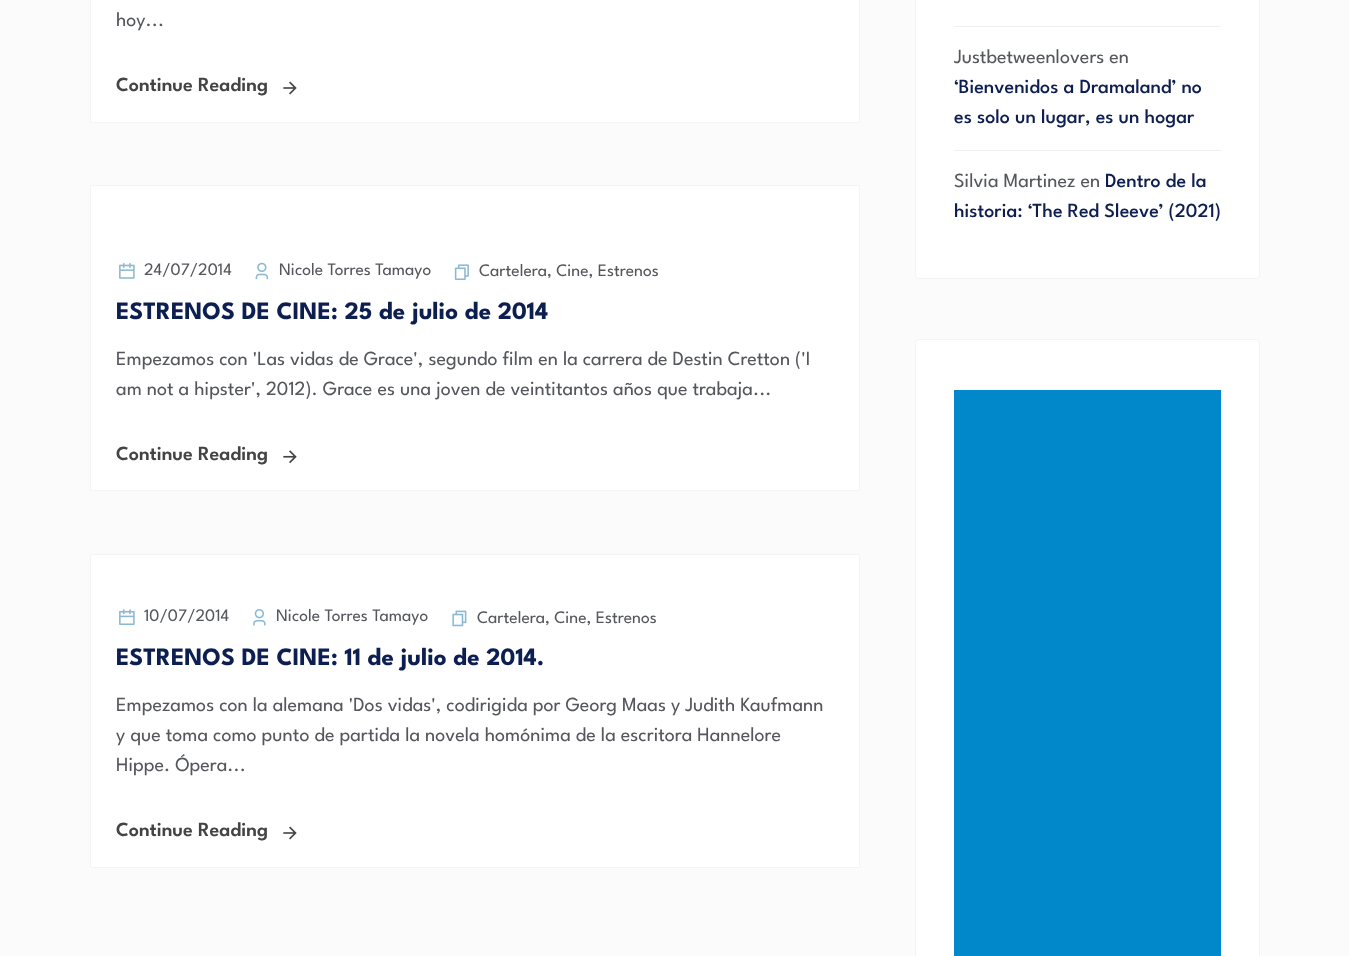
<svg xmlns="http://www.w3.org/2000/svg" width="1349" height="956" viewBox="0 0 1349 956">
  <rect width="100%" height="100%" fill="#fbfbfb"/>
  <path d="M90.5 -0.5h769v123H90.5z" fill="#fff" stroke="#f4f4f4"/>
  <image x="283" y="81" width="14" height="14" href="img/1.png"/>
  <path d="M90.5 185.5h769v305H90.5z" fill="#fff" stroke="#f4f4f4"/>
  <image x="119" y="263" width="16" height="16" href="img/2.png"/>
  <image x="255" y="262" width="14" height="18" href="img/3.png"/>
  <image x="454" y="264" width="15" height="16" href="img/4.png"/>
  <image x="283" y="450" width="14" height="14" href="img/5.png"/>
  <path d="M90.5 554.5h769v313H90.5z" fill="#fff" stroke="#f4f4f4"/>
  <image x="119" y="609" width="16" height="16" href="img/6.png"/>
  <image x="253" y="609" width="13" height="17" href="img/7.png"/>
  <image x="452" y="610" width="15" height="17" href="img/8.png"/>
  <image x="283" y="826" width="14" height="14" href="img/1.png"/>
  <rect x="915.5" y="-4.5" width="344" height="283" rx="3.5" fill="#fff" stroke="#f4f4f4"/>
  <path d="M954 26h267v1H954z" fill="#f0f0f0"/>
  <path d="M954 150h267v1H954z" fill="#f0f0f0"/>
  <rect x="915.5" y="339.5" width="344" height="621" rx="3.5" fill="#fff" stroke="#f4f4f4"/>
  <path d="M954 390h267v566H954z" fill="#0088cb"/>
  <text x="116" y="26" font-family="League Spartan" font-size="20" fill="#55575c">hoy...</text>
  <text x="116" y="91" font-family="League Spartan" font-size="20" font-weight="600" fill="#444">Continue Reading</text>
  <g font-family="League Spartan" font-size="17.5" fill="#55575c">
    <text x="144" y="275">24/07/2014</text>
    <text x="279" y="275">Nicole Torres Tamayo</text>
    <text x="479" y="276">Cartelera, Cine, Estrenos</text>
  </g>
  <text x="116" y="319" font-family="League Spartan" font-size="25" font-weight="bold" fill="#0d1e50">ESTRENOS DE CINE: 25 de julio de 2014</text>
  <g font-family="League Spartan" font-size="20" fill="#55575c">
    <text x="116" y="365">Empezamos con 'Las vidas de Grace', segundo film en la carrera de Destin Cretton ('I</text>
    <text x="116" y="395">am not a hipster', 2012). Grace es una joven de veintitantos años que trabaja...</text>
  </g>
  <text x="116" y="460" font-family="League Spartan" font-size="20" font-weight="600" fill="#444">Continue Reading</text>
  <g font-family="League Spartan" font-size="17.5" fill="#55575c">
    <text x="144" y="621">10/07/2014</text>
    <text x="276" y="621">Nicole Torres Tamayo</text>
    <text x="477" y="623">Cartelera, Cine, Estrenos</text>
  </g>
  <text x="116" y="665" font-family="League Spartan" font-size="25" font-weight="bold" fill="#0d1e50">ESTRENOS DE CINE: 11 de julio de 2014.</text>
  <g font-family="League Spartan" font-size="20" fill="#55575c">
    <text x="116" y="711">Empezamos con la alemana 'Dos vidas', codirigida por Georg Maas y Judith Kaufmann</text>
    <text x="116" y="741">y que toma como punto de partida la novela homónima de la escritora Hannelore</text>
    <text x="116" y="771">Hippe. Ópera...</text>
  </g>
  <text x="116" y="836" font-family="League Spartan" font-size="20" font-weight="600" fill="#444">Continue Reading</text>
  <text x="954" y="63" font-family="League Spartan" font-size="20" fill="#55575c">Justbetweenlovers en</text>
  <g font-family="League Spartan" font-size="20" font-weight="500" fill="#0d1e50">
    <text x="954" y="93">‘Bienvenidos a Dramaland’ no</text>
    <text x="954" y="123">es solo un lugar, es un hogar</text>
  </g>
  <text x="954" y="187" font-family="League Spartan" font-size="20" fill="#55575c">Silvia Martinez en</text>
  <g font-family="League Spartan" font-size="20" font-weight="500" fill="#0d1e50">
    <text x="1105" y="187">Dentro de la</text>
    <text x="954" y="217">historia: ‘The Red Sleeve’ (2021)</text>
  </g>
</svg>
